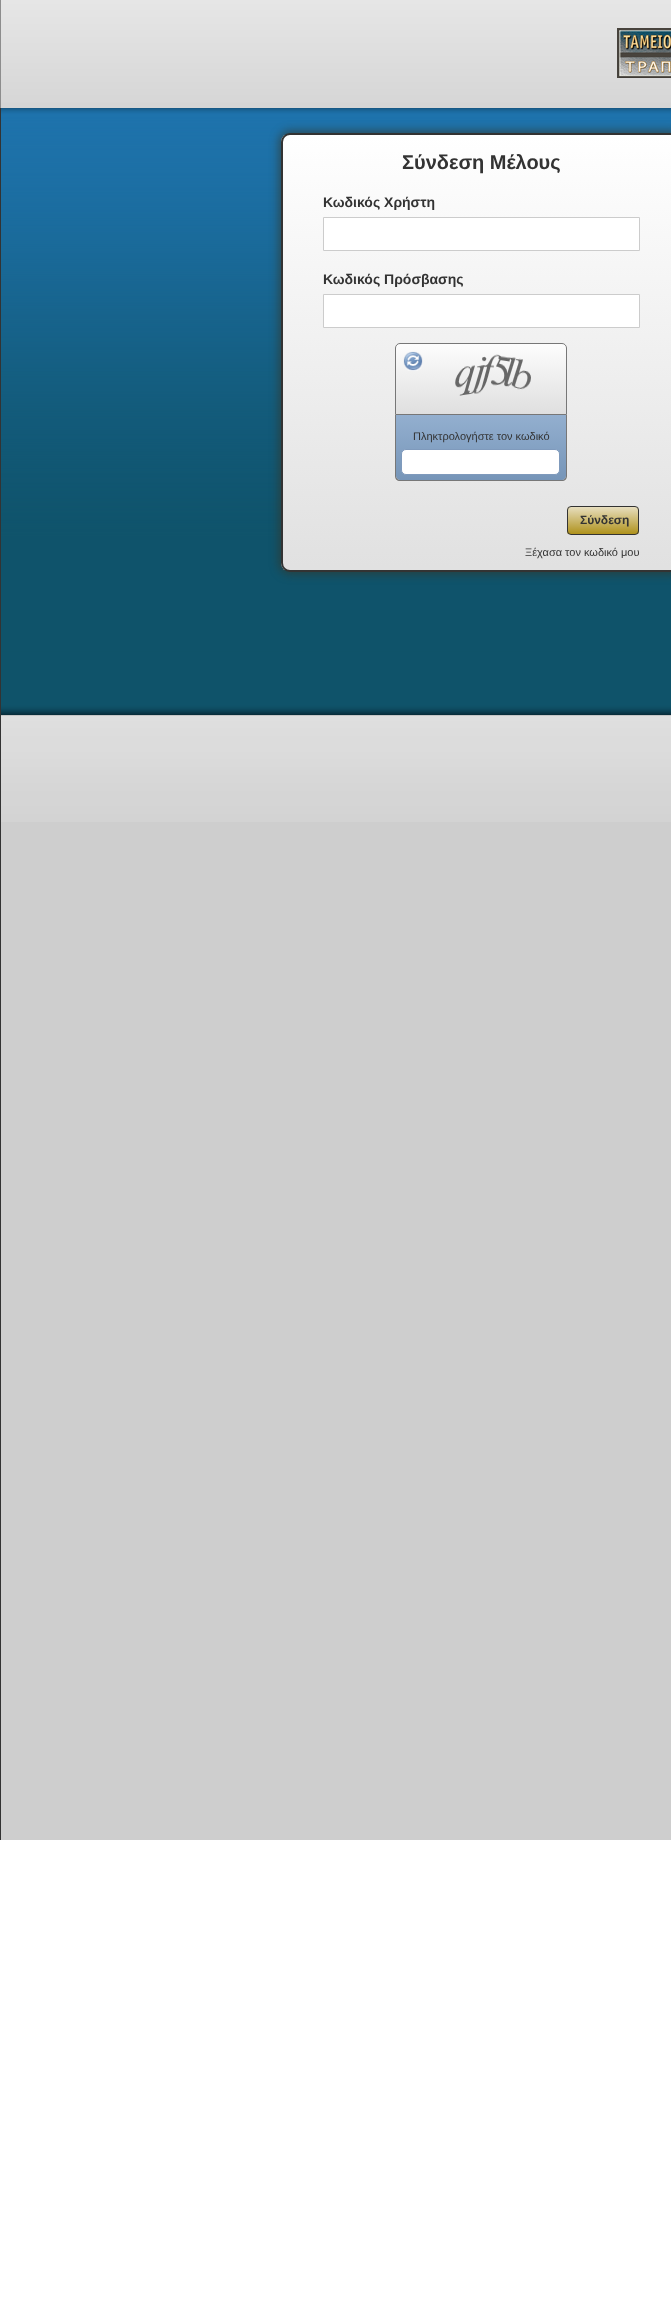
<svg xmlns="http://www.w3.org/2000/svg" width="671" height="2299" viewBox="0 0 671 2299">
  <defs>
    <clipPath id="clip1"><rect x="281" y="133" width="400" height="439" rx="9"/></clipPath>
    <linearGradient id="g1" gradientUnits="userSpaceOnUse" x1="481" y1="135" x2="481" y2="570"><stop offset="0" stop-color="#fff"/><stop offset="0.99" stop-color="#e1e1e1"/></linearGradient>
    <clipPath id="clip2"><path d="M400 343H562C565 343 567 345 567 348V415H395V348C395 345 397 343 400 343Z"/></clipPath>
    <linearGradient id="g2" gradientUnits="userSpaceOnUse" x1="481" y1="344" x2="481" y2="414"><stop offset="0" stop-color="#fdfdfd"/><stop offset="1" stop-color="#dfdfdf"/></linearGradient>
    <linearGradient id="g3" gradientUnits="userSpaceOnUse" x1="481" y1="415" x2="481" y2="480"><stop offset="0" stop-color="#93afcf"/><stop offset="1" stop-color="#7695b8"/></linearGradient>
    <clipPath id="clip3"><rect x="567" y="506" width="72" height="29" rx="4"/></clipPath>
    <linearGradient id="g4" gradientUnits="userSpaceOnUse" x1="603" y1="507" x2="603" y2="534"><stop offset="0" stop-color="#e7debe"/><stop offset="1" stop-color="#af921c"/></linearGradient>
  </defs>
  <rect width="100%" height="100%" fill="#fff"/>
  <image x="1" y="0" width="670" height="108" href="img/1.png"/>
  <path d="M0 0h1v108H0z" fill="#8d8d8d"/>
  <image x="617" y="28" width="54" height="50" href="img/2.png"/>
  <image x="1" y="108" width="670" height="607" href="img/3.png"/>
  <path d="M0 108h1v1732H0z" fill="#333"/>
  <rect x="279" y="131" width="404" height="443" rx="11" fill="#353526a6" filter="blur(5px)"/>
  <g clip-path="url(#clip1)">
    <path d="M281 135h390v435H281z" fill="url(#g1)"/>
  </g>
  <rect x="282" y="134" width="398" height="437" rx="8" fill="none" stroke="#333" stroke-width="2"/>
  <path d="M323.5 217.5h316v33H323.5z" fill="#fff" stroke="#ccc"/>
  <path d="M323.5 294.5h316v33H323.5z" fill="#fff" stroke="#ccc"/>
  <g clip-path="url(#clip2)">
    <path d="M395 344h172v70H395z" fill="url(#g2)"/>
  </g>
  <path d="M400 343.5H562C564.5 343.5 566.5 345.5 566.5 348V414.5H395.5V348C395.5 345.5 397.5 343.5 400 343.5Z" fill="none" stroke="#777"/>
  <image x="403" y="351" width="20" height="20" href="img/4.png"/>
  <image x="455" y="354" width="76" height="42" href="img/5.png"/>
  <path d="M396 415H566V476C566 478 564 480 562 480H400C398 480 396 478 396 476Z" fill="url(#g3)"/>
  <path d="M395 415H567V476C567 479 565 481 562 481H400C397 481 395 479 395 476ZM396 415H566V476C566 478 564 480 562 480H400C398 480 396 478 396 476Z" fill="#777" fill-rule="evenodd"/>
  <rect x="401.5" y="449.5" width="158" height="25" rx="4.5" fill="#fff" stroke="#7f9abc"/>
  <g clip-path="url(#clip3)">
    <path d="M567 507h72v27H567z" fill="url(#g4)"/>
  </g>
  <rect x="567.5" y="506.5" width="71" height="28" rx="3.5" fill="none" stroke="#333"/>
  <path d="M1 822h670v1018H1z" fill="#cecece"/>
  <image x="1" y="715" width="670" height="107" href="img/6.png"/>
  <text x="402" y="169" font-family="Liberation Sans" font-size="20" font-weight="bold" fill="#333">Σύνδεση Mέλους</text>
  <g font-family="Liberation Sans" font-size="14" font-weight="bold" fill="#333">
    <text x="323" y="207">Κωδικός Χρήστη</text>
    <text x="323" y="284">Κωδικός Πρόσβασης</text>
  </g>
  <text x="413" y="440" font-family="Liberation Sans" font-size="11" fill="#333">Πληκτρολογήστε τον κωδικό</text>
  <text x="580" y="524" font-family="Liberation Sans" font-size="12" font-weight="bold" fill="#333">Σύνδεση</text>
  <text x="525" y="556" font-family="Liberation Sans" font-size="11" fill="#333">Ξέχασα τον κωδικό μου</text>
</svg>
